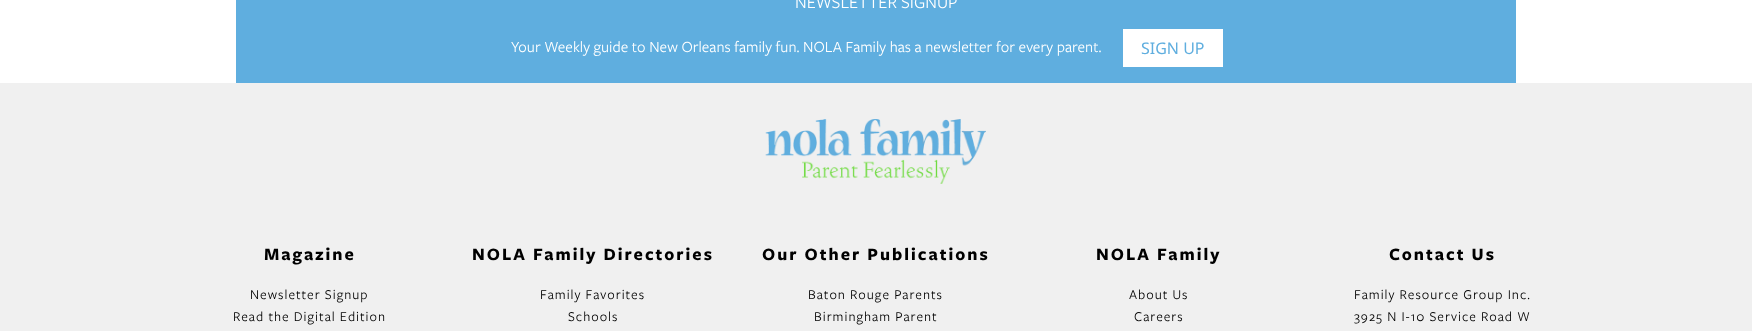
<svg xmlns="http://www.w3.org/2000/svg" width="1752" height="331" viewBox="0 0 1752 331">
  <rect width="100%" height="100%" fill="#fff"/>
  <path d="M236 0h1280v83H236z" fill="#5faedf"/>
  <path d="M1123 29h100v38H1123z" fill="#fff"/>
  <path d="M0 83h1752v248H0z" fill="#f0f0f0"/>
  <image x="765" y="119" width="221" height="65" href="img/1.png"/>
  <text x="795" y="8" font-family="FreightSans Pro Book" font-size="18" fill="#fff">NEWSLETTER SIGNUP</text>
  <text x="511" y="52" font-family="FreightSans Pro Book" font-size="16" fill="#fff">Your Weekly guide to New Orleans family fun. NOLA Family has a newsletter for every parent.</text>
  <text x="1141" y="54" font-family="Noto Sans" font-size="16" fill="#5faedf">SIGN UP</text>
  <text x="264" y="260" font-family="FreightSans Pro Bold" font-size="18" font-weight="bold" letter-spacing="2" fill="#000">Magazine</text>
  <g font-family="FreightSans Pro Book" font-size="14" letter-spacing="1" fill="#000">
    <text x="250" y="299">Newsletter Signup</text>
    <text x="233" y="321">Read the Digital Edition</text>
  </g>
  <text x="472" y="260" font-family="FreightSans Pro Bold" font-size="18" font-weight="bold" letter-spacing="2" fill="#000">NOLA Family Directories</text>
  <g font-family="FreightSans Pro Book" font-size="14" letter-spacing="1" fill="#000">
    <text x="540" y="299">Family Favorites</text>
    <text x="568" y="321">Schools</text>
  </g>
  <text x="762" y="260" font-family="FreightSans Pro Bold" font-size="18" font-weight="bold" letter-spacing="2" fill="#000">Our Other Publications</text>
  <g font-family="FreightSans Pro Book" font-size="14" letter-spacing="1" fill="#000">
    <text x="808" y="299">Baton Rouge Parents</text>
    <text x="814" y="321">Birmingham Parent</text>
  </g>
  <text x="1096" y="260" font-family="FreightSans Pro Bold" font-size="18" font-weight="bold" letter-spacing="2" fill="#000">NOLA Family</text>
  <g font-family="FreightSans Pro Book" font-size="14" letter-spacing="1" fill="#000">
    <text x="1129" y="299">About Us</text>
    <text x="1134" y="321">Careers</text>
  </g>
  <text x="1389" y="260" font-family="FreightSans Pro Bold" font-size="18" font-weight="bold" letter-spacing="2" fill="#000">Contact Us</text>
  <g font-family="FreightSans Pro Book" font-size="14" letter-spacing="1" fill="#000">
    <text x="1354" y="299">Family Resource Group Inc.</text>
    <text x="1354" y="321">3925 N I-10 Service Road W</text>
  </g>
</svg>
